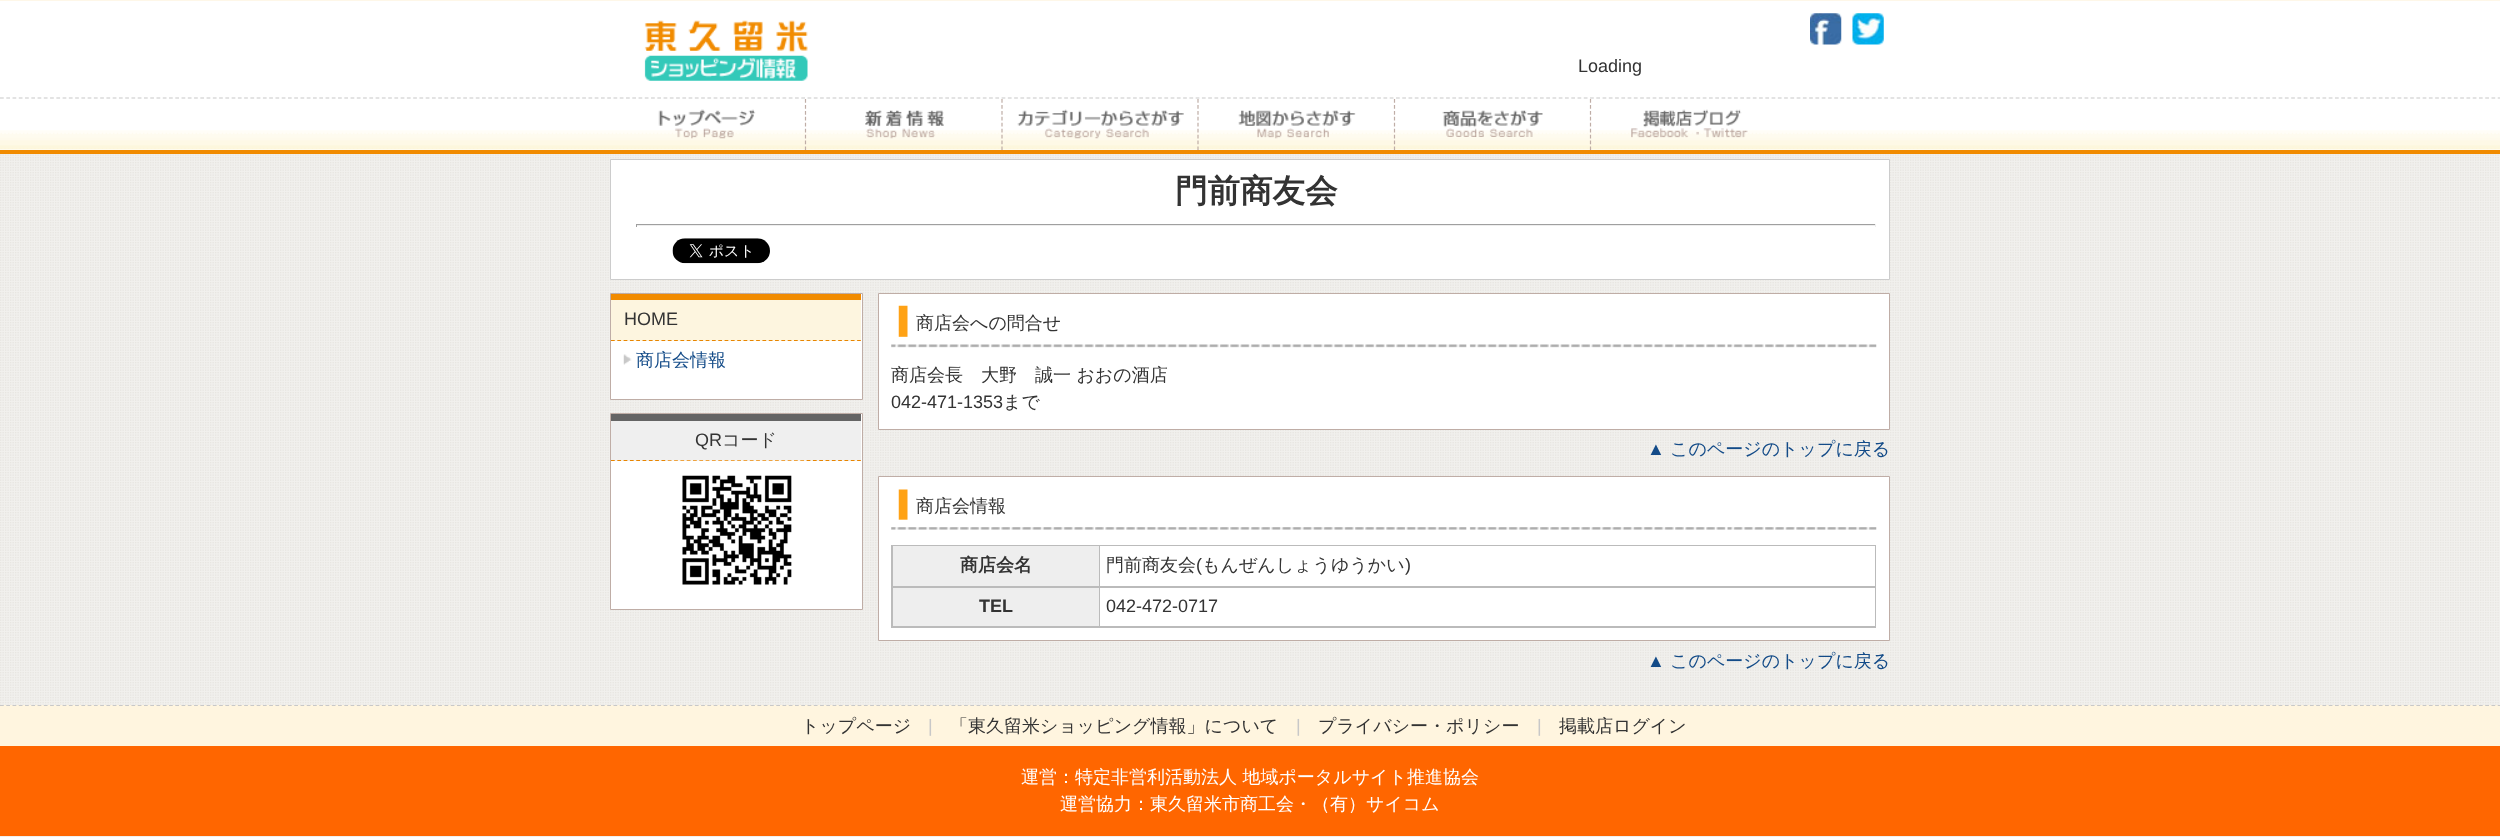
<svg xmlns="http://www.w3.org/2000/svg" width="2500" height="837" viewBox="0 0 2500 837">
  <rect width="100%" height="100%" fill="#fff"/>
  <image x="0" y="154" width="2500" height="683" href="img/1.png"/>
  <path d="M0 0h2500v1H0z" fill="#fef7e8"/>
  <path d="M0 98H2500" fill="none" stroke="#c8c8c8" stroke-width="1.2" stroke-dasharray="3.75 2.51"/>
  <image x="644" y="20" width="164" height="61" href="img/2.png"/>
  <image x="1810" y="13" width="32" height="32" href="img/3.png"/>
  <image x="1852" y="13" width="32" height="32" href="img/4.png"/>
  <image x="0" y="99" width="2500" height="51" href="img/5.png"/>
  <path d="M0 150h2500v4H0z" fill="#f18b00"/>
  <image x="658" y="109" width="98" height="30" href="img/6.png"/>
  <image x="865" y="110" width="79" height="29" href="img/7.png"/>
  <path d="M805.5 99V150" fill="none" stroke="#bfada6" stroke-width="1.2" stroke-dasharray="3.75 2.19"/>
  <image x="1017" y="109" width="167" height="30" href="img/8.png"/>
  <path d="M1002 99V150" fill="none" stroke="#bfada6" stroke-width="1.2" stroke-dasharray="3.75 2.19"/>
  <image x="1238" y="110" width="118" height="29" href="img/9.png"/>
  <path d="M1198 99V150" fill="none" stroke="#bfada6" stroke-width="1.2" stroke-dasharray="3.75 2.19"/>
  <image x="1442" y="110" width="101" height="27" href="img/10.png"/>
  <path d="M1394.5 99V150" fill="none" stroke="#bfada6" stroke-width="1.2" stroke-dasharray="3.75 2.19"/>
  <image x="1631" y="109" width="117" height="29" href="img/11.png"/>
  <path d="M1590.5 99V150" fill="none" stroke="#bfada6" stroke-width="1.2" stroke-dasharray="3.75 2.19"/>
  <path d="M610.5 159.5h1279v120H610.5z" fill="#fff" stroke="#ccc"/>
  <path d="M636 224h1240v1H636z" fill="#9f9f9f"/>
  <path d="M1875 224h1v3H1875z" fill="#eee"/>
  <path d="M636 225h1240v1H636z" fill="#eee"/>
  <path d="M636 224h1v3H636z" fill="#9f9f9f"/>
  <image x="672" y="238" width="98" height="26" href="img/12.png"/>
  <path d="M610.5 293.5h252v106H610.5z" fill="#fff" stroke="#bfada6"/>
  <path d="M611 300h250v41H611z" fill="#fdf5df"/>
  <path d="M611 294h250v6H611z" fill="#f18b00"/>
  <path d="M611 340.5H861" fill="none" stroke="#e88500" stroke-width="1.2" stroke-dasharray="3.75 2.56"/>
  <image x="623" y="354" width="9" height="11" href="img/13.png"/>
  <path d="M610.5 413.5h252v196H610.5z" fill="#fff" stroke="#bfada6"/>
  <path d="M611 421h250v40H611z" fill="#efefef"/>
  <path d="M611 414h250v7H611z" fill="#646464"/>
  <path d="M611 460.5H861" fill="none" stroke="#e88500" stroke-width="1.2" stroke-dasharray="3.75 2.56"/>
  <image x="667" y="460" width="140" height="125" href="img/14.png"/>
  <path d="M878.5 293.5h1011v136H878.5z" fill="#fff" stroke="#bfada6"/>
  <image x="891" y="305" width="986" height="43" href="img/15.png"/>
  <path d="M878.5 476.5h1011v164H878.5z" fill="#fff" stroke="#bfada6"/>
  <image x="891" y="489" width="986" height="41" href="img/16.png"/>
  <path d="M891 545h985v83H891z" fill="#bbb"/>
  <path d="M893 546h206v40H893z" fill="#eee"/>
  <path d="M1100 546h775v40H1100z" fill="#fff"/>
  <path d="M893 588h206v38H893z" fill="#eee"/>
  <path d="M1100 588h775v38H1100z" fill="#fff"/>
  <path d="M0 705h2500v41H0z" fill="#fff5df"/>
  <path d="M0 705.5H2500" fill="none" stroke="#c8c8c8" stroke-width="1.2" stroke-dasharray="3.75 2.51"/>
  <path d="M0 746h2500v90H0z" fill="#f60"/>
  <text x="1578" y="72" font-family="Liberation Sans" font-size="18" fill="#333">Loading</text>
  <text x="1175" y="202" font-family="WenQuanYi Zen Hei" font-size="32.5" font-weight="bold" fill="#333">門前商友会</text>
  <text x="624" y="325" font-family="Liberation Sans" font-size="18" fill="#333">HOME</text>
  <text x="636" y="366" font-family="WenQuanYi Zen Hei" font-size="18" font-weight="500" fill="#134b88">商店会情報</text>
  <text x="695" y="446" font-family="Liberation Sans" font-size="18" fill="#333">QR</text>
  <g font-family="WenQuanYi Zen Hei" font-size="18" font-weight="500" fill="#333">
    <text x="722" y="446">コード</text>
    <text x="916" y="329">商店会への問合せ</text>
    <text x="891" y="381">商店会長　大野　誠一 おおの酒店</text>
  </g>
  <text x="891" y="408" font-family="Liberation Sans" font-size="18" fill="#333">042-471-1353</text>
  <text x="1003" y="408" font-family="WenQuanYi Zen Hei" font-size="18" font-weight="500" fill="#333">まで</text>
  <text x="1647" y="455" font-family="Liberation Sans" font-size="18" fill="#134b88">▲</text>
  <text x="1670" y="455" font-family="WenQuanYi Zen Hei" font-size="18" font-weight="500" fill="#134b88">このページのトップに戻る</text>
  <text x="916" y="512" font-family="WenQuanYi Zen Hei" font-size="18" font-weight="500" fill="#333">商店会情報</text>
  <text x="960" y="571" font-family="WenQuanYi Zen Hei" font-size="18" font-weight="bold" fill="#333">商店会名</text>
  <text x="1106" y="571" font-family="WenQuanYi Zen Hei" font-size="18" font-weight="500" fill="#333">門前商友会</text>
  <text x="1196" y="571" font-family="Liberation Sans" font-size="18" fill="#333">(</text>
  <text x="1202" y="571" font-family="WenQuanYi Zen Hei" font-size="18" font-weight="500" fill="#333">もんぜんしょうゆうかい</text>
  <text x="1405" y="571" font-family="Liberation Sans" font-size="18" fill="#333">)</text>
  <text x="979" y="612" font-family="Liberation Sans" font-size="18" font-weight="bold" fill="#333">TEL</text>
  <text x="1106" y="612" font-family="Liberation Sans" font-size="18" fill="#333">042-472-0717</text>
  <text x="1647" y="667" font-family="Liberation Sans" font-size="18" fill="#134b88">▲</text>
  <text x="1670" y="667" font-family="WenQuanYi Zen Hei" font-size="18" font-weight="500" fill="#134b88">このページのトップに戻る</text>
  <text x="801" y="732" font-family="WenQuanYi Zen Hei" font-size="18" font-weight="500" fill="#333">トップページ</text>
  <text x="928" y="732" font-family="Liberation Sans" font-size="18" fill="#c8c8c8">|</text>
  <text x="950" y="732" font-family="WenQuanYi Zen Hei" font-size="18" font-weight="500" fill="#333">「東久留米ショッピング情報」について</text>
  <text x="1296" y="732" font-family="Liberation Sans" font-size="18" fill="#c8c8c8">|</text>
  <text x="1318" y="732" font-family="WenQuanYi Zen Hei" font-size="18" font-weight="500" fill="#333">プライバシー・ポリシー</text>
  <text x="1537" y="732" font-family="Liberation Sans" font-size="18" fill="#c8c8c8">|</text>
  <text x="1559" y="732" font-family="WenQuanYi Zen Hei" font-size="18" font-weight="500" fill="#333">掲載店ログイン</text>
  <g font-family="WenQuanYi Zen Hei" font-size="18" font-weight="500" fill="#fff">
    <text x="1021" y="783">運営：</text>
    <text x="1075" y="783">特定非営利活動法人 地域ポータルサイト推進協会</text>
    <text x="1060" y="810">運営協力：東久留米市商工会・（有）サイコム</text>
  </g>
</svg>
